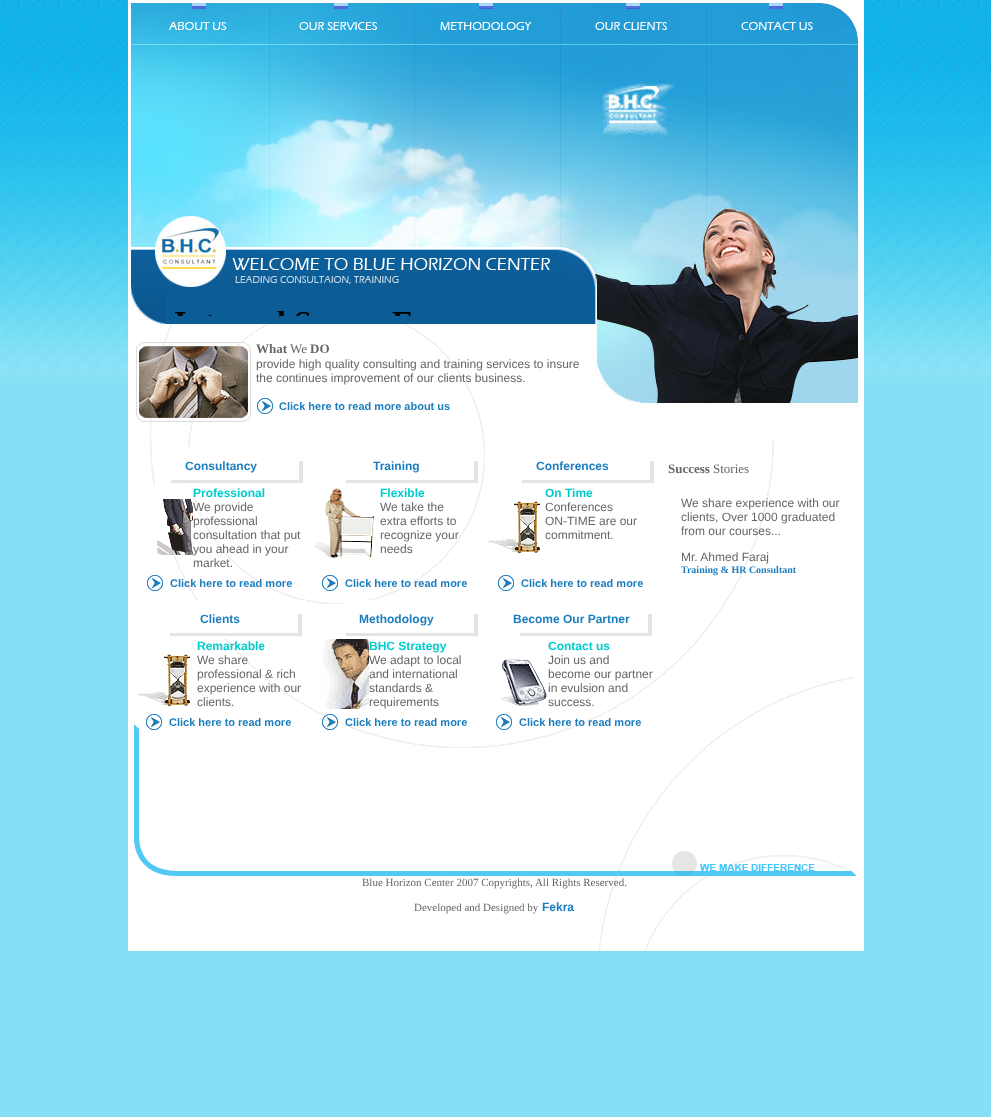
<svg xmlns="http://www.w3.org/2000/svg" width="991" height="1117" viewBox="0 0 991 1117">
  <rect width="100%" height="100%" fill="#84e0f5"/>
  <image x="0" y="0" width="991" height="379" href="img/1.png"/>
  <image x="128" y="0" width="736" height="951" href="img/2.png"/>
  <image x="131" y="3" width="137" height="43" href="img/3.png"/>
  <image x="268" y="3" width="145" height="43" href="img/4.png"/>
  <image x="413" y="3" width="145" height="43" href="img/5.png"/>
  <image x="558" y="3" width="147" height="43" href="img/6.png"/>
  <image x="705" y="3" width="153" height="43" href="img/7.png"/>
  <image x="131" y="46" width="464" height="204" href="img/8.png"/>
  <image x="595" y="46" width="263" height="140" href="img/9.png"/>
  <image x="131" y="250" width="464" height="38" href="img/10.png"/>
  <image x="595" y="186" width="263" height="254" href="img/11.png"/>
  <image x="131" y="288" width="35" height="36" href="img/12.png"/>
  <path d="M166 288h429v36H166z" fill="#0c5c95"/>
  <image x="175" y="311" width="236" height="5" href="img/13.png"/>
  <image x="136" y="342" width="115" height="80" href="img/14.png"/>
  <image x="257" y="398" width="16" height="16" href="img/15.png"/>
  <image x="134" y="724" width="723" height="152" href="img/16.png"/>
  <image x="171" y="447" width="132" height="38" href="img/17.png"/>
  <image x="154" y="486" width="39" height="70" href="img/18.png"/>
  <image x="147" y="575" width="16" height="16" href="img/15.png"/>
  <image x="346" y="461" width="132" height="22" href="img/19.png"/>
  <image x="313" y="488" width="61" height="70" href="img/20.png"/>
  <image x="322" y="575" width="16" height="16" href="img/15.png"/>
  <image x="522" y="461" width="132" height="22" href="img/19.png"/>
  <image x="487" y="501" width="53" height="52" href="img/21.png"/>
  <image x="498" y="575" width="16" height="16" href="img/15.png"/>
  <image x="170" y="600" width="135" height="38" href="img/22.png"/>
  <image x="137" y="654" width="53" height="52" href="img/21.png"/>
  <image x="146" y="714" width="16" height="16" href="img/15.png"/>
  <image x="346" y="600" width="132" height="36" href="img/23.png"/>
  <image x="323" y="639" width="46" height="70" href="img/24.png"/>
  <image x="322" y="714" width="16" height="16" href="img/25.png"/>
  <image x="520" y="614" width="132" height="22" href="img/19.png"/>
  <image x="501" y="659" width="46" height="47" href="img/26.png"/>
  <image x="496" y="714" width="16" height="16" href="img/15.png"/>
  <text x="256" y="353" font-family="Liberation Serif" font-size="13" font-weight="bold" fill="#666">What</text>
  <text x="290" y="353" font-family="Liberation Serif" font-size="13" fill="#666">We</text>
  <text x="310" y="353" font-family="Liberation Serif" font-size="13" font-weight="bold" fill="#666">DO</text>
  <g font-family="Liberation Sans" font-size="12" fill="#666">
    <text x="256" y="368">provide high quality consulting and training services to insure</text>
    <text x="256" y="382">the continues improvement of our clients business.</text>
  </g>
  <text x="279" y="410" font-family="Liberation Sans" font-size="11" font-weight="bold" fill="#1c7ebf">Click here to read more about us</text>
  <text x="185" y="470" font-family="Liberation Sans" font-size="12" font-weight="bold" fill="#1c7ebf">Consultancy</text>
  <text x="193" y="497" font-family="Liberation Sans" font-size="12" font-weight="bold" fill="#0cc">Professional</text>
  <g font-family="Liberation Sans" font-size="12" fill="#666">
    <text x="193" y="511">We provide</text>
    <text x="193" y="525">professional</text>
    <text x="193" y="539">consultation that put</text>
    <text x="193" y="553">you ahead in your</text>
    <text x="193" y="567">market.</text>
  </g>
  <text x="170" y="587" font-family="Liberation Sans" font-size="11" font-weight="bold" fill="#1c7ebf">Click here to read more</text>
  <text x="373" y="470" font-family="Liberation Sans" font-size="12" font-weight="bold" fill="#1c7ebf">Training</text>
  <text x="380" y="497" font-family="Liberation Sans" font-size="12" font-weight="bold" fill="#0cc">Flexible</text>
  <g font-family="Liberation Sans" font-size="12" fill="#666">
    <text x="380" y="511">We take the</text>
    <text x="380" y="525">extra efforts to</text>
    <text x="380" y="539">recognize your</text>
    <text x="380" y="553">needs</text>
  </g>
  <text x="345" y="587" font-family="Liberation Sans" font-size="11" font-weight="bold" fill="#1c7ebf">Click here to read more</text>
  <text x="536" y="470" font-family="Liberation Sans" font-size="12" font-weight="bold" fill="#1c7ebf">Conferences</text>
  <text x="545" y="497" font-family="Liberation Sans" font-size="12" font-weight="bold" fill="#0cc">On Time</text>
  <g font-family="Liberation Sans" font-size="12" fill="#666">
    <text x="545" y="511">Conferences</text>
    <text x="545" y="525">ON-TIME are our</text>
    <text x="545" y="539">commitment.</text>
  </g>
  <text x="521" y="587" font-family="Liberation Sans" font-size="11" font-weight="bold" fill="#1c7ebf">Click here to read more</text>
  <text x="200" y="623" font-family="Liberation Sans" font-size="12" font-weight="bold" fill="#1c7ebf">Clients</text>
  <text x="197" y="650" font-family="Liberation Sans" font-size="12" font-weight="bold" fill="#0cc">Remarkable</text>
  <g font-family="Liberation Sans" font-size="12" fill="#666">
    <text x="197" y="664">We share</text>
    <text x="197" y="678">professional &amp; rich</text>
    <text x="197" y="692">experience with our</text>
    <text x="197" y="706">clients.</text>
  </g>
  <text x="169" y="726" font-family="Liberation Sans" font-size="11" font-weight="bold" fill="#1c7ebf">Click here to read more</text>
  <text x="359" y="623" font-family="Liberation Sans" font-size="12" font-weight="bold" fill="#1c7ebf">Methodology</text>
  <text x="369" y="650" font-family="Liberation Sans" font-size="12" font-weight="bold" fill="#0cc">BHC Strategy</text>
  <g font-family="Liberation Sans" font-size="12" fill="#666">
    <text x="369" y="664">We adapt to local</text>
    <text x="369" y="678">and international</text>
    <text x="369" y="692">standards &amp;</text>
    <text x="369" y="706">requirements</text>
  </g>
  <text x="345" y="726" font-family="Liberation Sans" font-size="11" font-weight="bold" fill="#1c7ebf">Click here to read more</text>
  <text x="513" y="623" font-family="Liberation Sans" font-size="12" font-weight="bold" fill="#1c7ebf">Become Our Partner</text>
  <text x="548" y="650" font-family="Liberation Sans" font-size="12" font-weight="bold" fill="#0cc">Contact us</text>
  <g font-family="Liberation Sans" font-size="12" fill="#666">
    <text x="548" y="664">Join us and</text>
    <text x="548" y="678">become our partner</text>
    <text x="548" y="692">in evulsion and</text>
    <text x="548" y="706">success.</text>
  </g>
  <text x="519" y="726" font-family="Liberation Sans" font-size="11" font-weight="bold" fill="#1c7ebf">Click here to read more</text>
  <text x="668" y="473" font-family="Liberation Serif" font-size="13" font-weight="bold" fill="#666">Success</text>
  <text x="713" y="473" font-family="Liberation Serif" font-size="13" fill="#666">Stories</text>
  <g font-family="Liberation Sans" font-size="12" fill="#666">
    <text x="681" y="507">We share experience with our</text>
    <text x="681" y="521">clients, Over 1000 graduated</text>
    <text x="681" y="535">from our courses...</text>
    <text x="681" y="561">Mr. Ahmed Faraj</text>
  </g>
  <text x="681" y="573" font-family="Liberation Serif" font-size="10" font-weight="bold" fill="#1c7ebf">Training &amp; HR Consultant</text>
  <g font-family="Liberation Serif" font-size="11" fill="#666">
    <text x="362" y="886">Blue Horizon Center 2007 Copyrights, All Rights Reserved.</text>
    <text x="414" y="911">Developed and Designed by</text>
  </g>
  <text x="542" y="911" font-family="Liberation Sans" font-size="12" font-weight="bold" fill="#1c7ebf">Fekra</text>
</svg>
